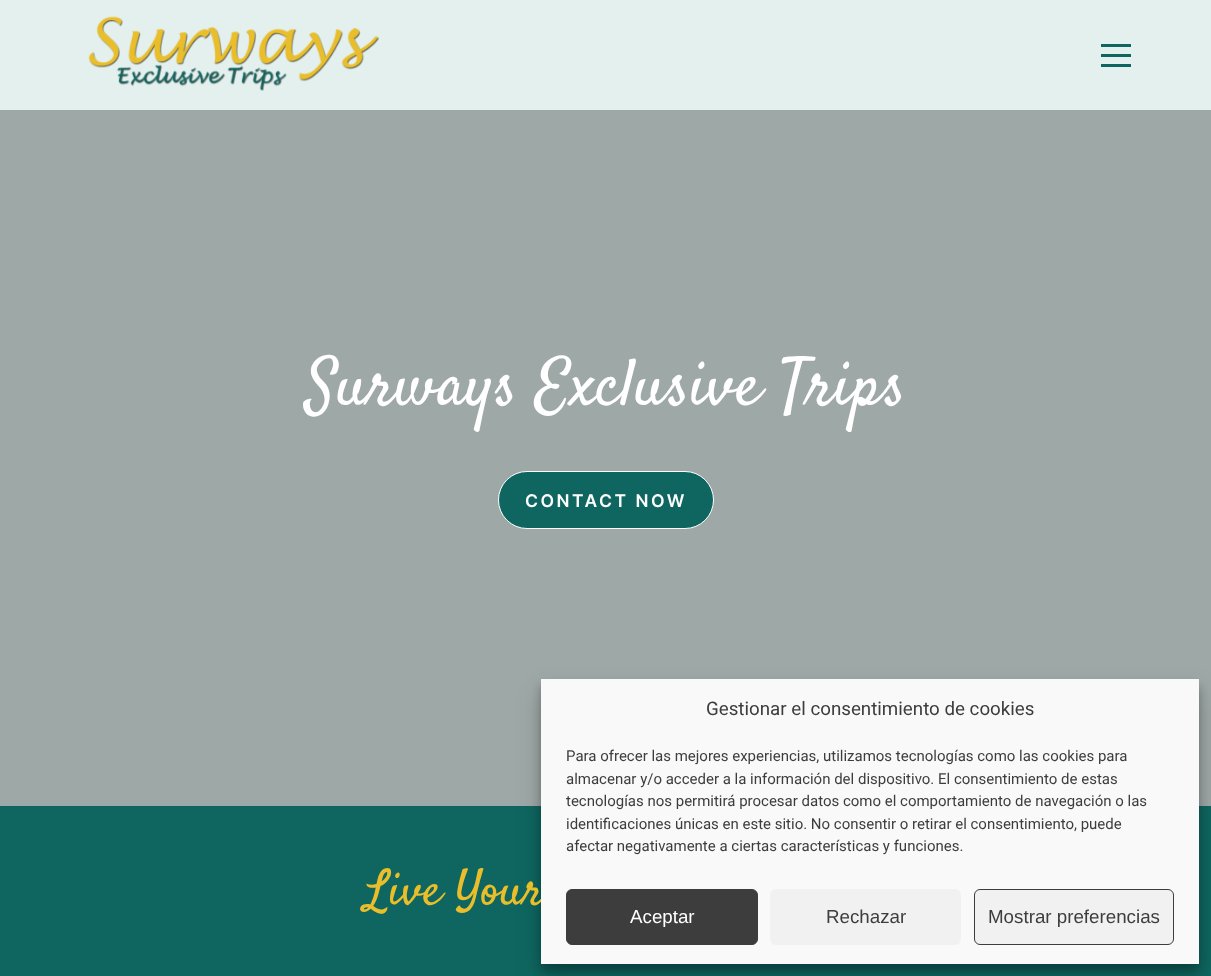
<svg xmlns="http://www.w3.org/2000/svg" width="1211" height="976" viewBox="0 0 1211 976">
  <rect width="100%" height="100%" fill="#0f6660"/>
  <path d="M0 0h1211v110H0z" fill="#e4f0ed"/>
  <image x="88" y="16" width="291" height="75" href="img/1.png"/>
  <path d="M1101 54h30v3H1101z" fill="#0f6660"/>
  <path d="M1101 44h30v3H1101z" fill="#0f6660"/>
  <path d="M1101 64h30v3H1101z" fill="#0f6660"/>
  <path d="M0 110h1211v696H0z" fill="#9ea8a7"/>
  <rect x="498.5" y="471.5" width="215" height="57" rx="28.5" fill="#0f6660" stroke="#fff"/>
  <path d="M541 686h658v285H541z" fill="#0000003b" filter="blur(4px)"/>
  <path d="M541 691h658v285H541z" fill="#00000030" filter="blur(12.5px)"/>
  <text x="306" y="404" font-family="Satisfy" font-size="66.25" fill="#fff">Surways Exclusive Trips</text>
  <text x="525" y="507" font-family="Inter" font-size="17.5" font-weight="600" letter-spacing="2.5" fill="#fff">CONTACT NOW</text>
  <text x="365" y="904" font-family="Satisfy" font-size="49" fill="#e9be2a">Live Your</text>
  <path d="M541 679h658v285H541z" fill="#f9f9f9"/>
  <text x="706" y="715" font-family="Roboto" font-size="18.75" fill="#3d3d3d">Gestionar el consentimiento de cookies</text>
  <g font-family="Roboto" font-size="15" fill="#3d3d3d">
    <text x="566" y="761">Para ofrecer las mejores experiencias, utilizamos tecnologías como las cookies para</text>
    <text x="566" y="784">almacenar y/o acceder a la información del dispositivo. El consentimiento de estas</text>
    <text x="566" y="806">tecnologías nos permitirá procesar datos como el comportamiento de navegación o las</text>
    <text x="566" y="829">identificaciones únicas en este sitio. No consentir o retirar el consentimiento, puede</text>
    <text x="566" y="851">afectar negativamente a ciertas características y funciones.</text>
  </g>
  <rect x="566.5" y="889.5" width="191" height="55" rx="5.5" fill="#3d3d3d" stroke="#3d3d3d"/>
  <text x="630" y="923" font-family="Liberation Sans" font-size="18.75" fill="#fff">Aceptar</text>
  <rect x="770" y="889" width="191" height="56" rx="6" fill="#f1f1f1"/>
  <text x="826" y="923" font-family="Liberation Sans" font-size="18.75" fill="#3d3d3d">Rechazar</text>
  <rect x="974.5" y="889.5" width="199" height="55" rx="5.5" fill="#f1f1f1" stroke="#3d3d3d"/>
  <text x="988" y="923" font-family="Liberation Sans" font-size="18.75" fill="#3d3d3d">Mostrar preferencias</text>
</svg>
